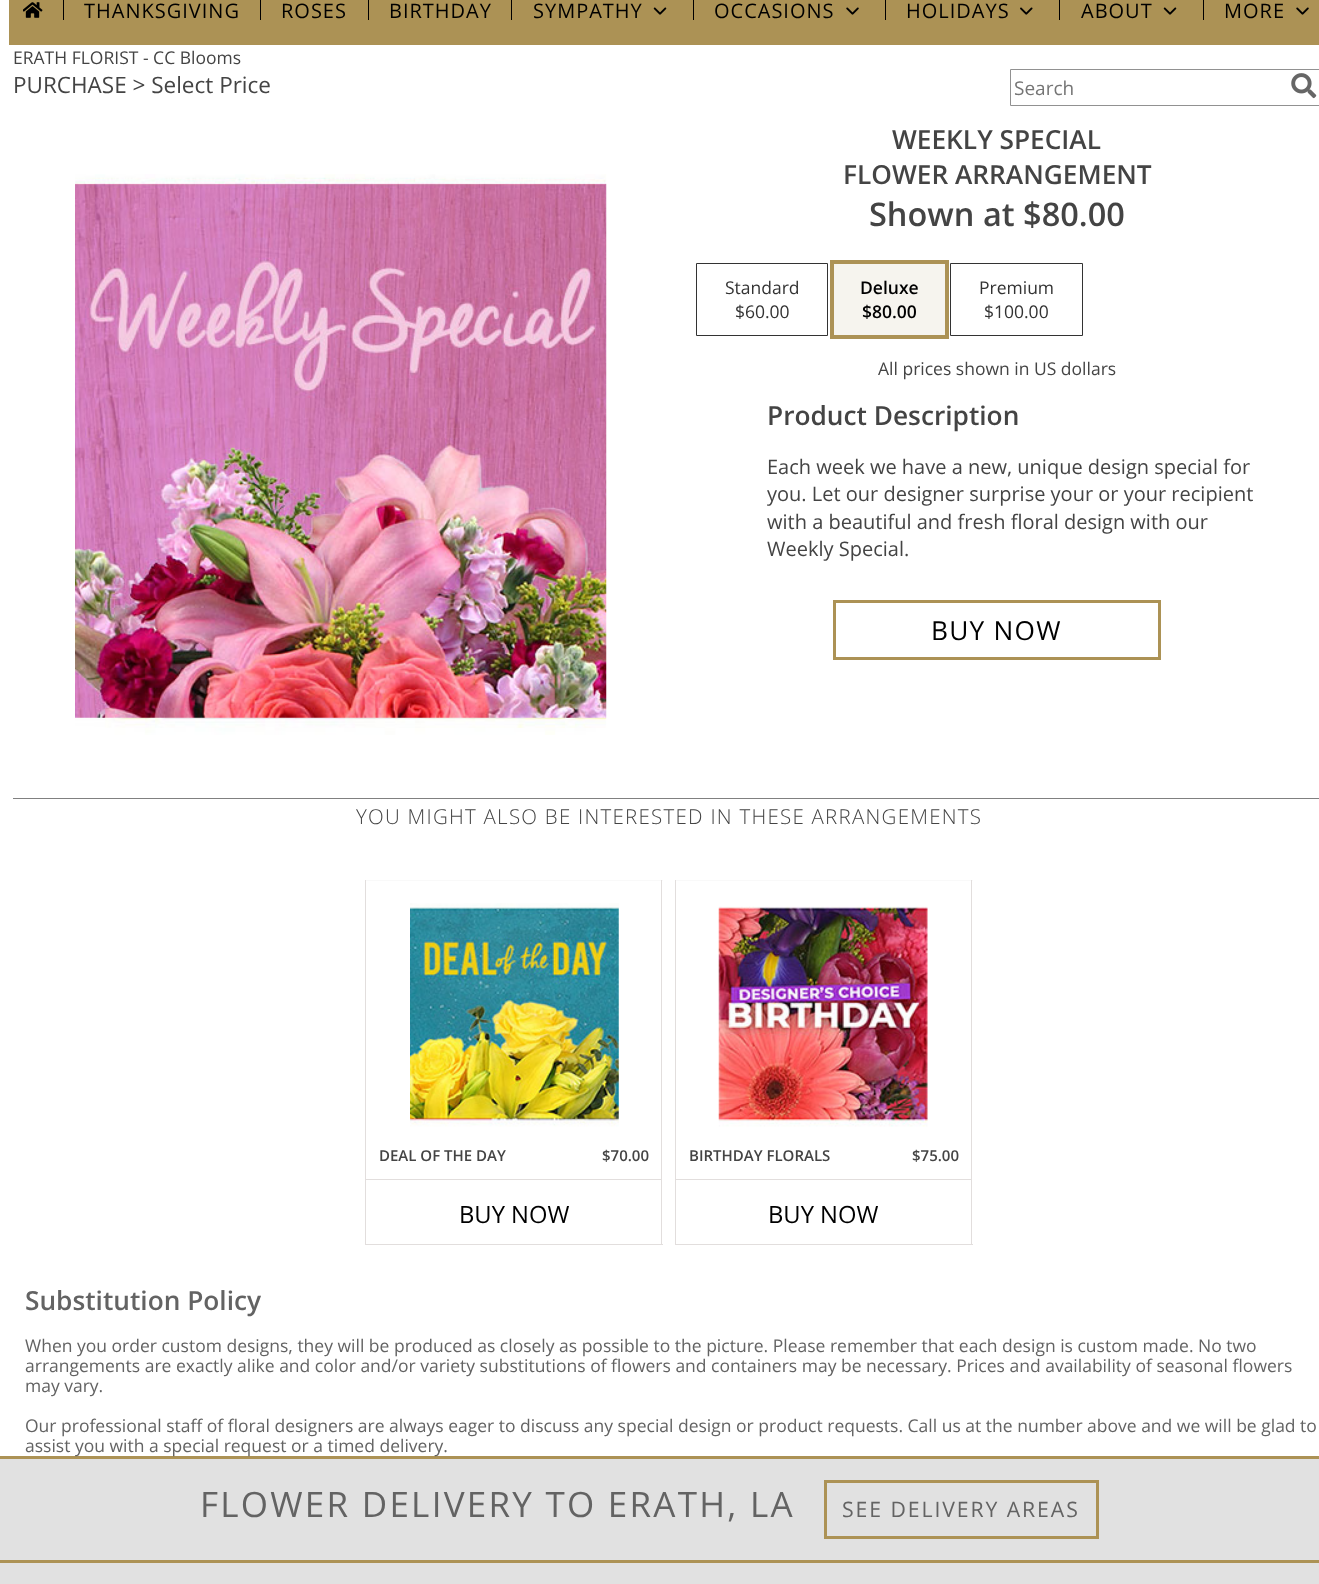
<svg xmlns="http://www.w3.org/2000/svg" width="1319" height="1584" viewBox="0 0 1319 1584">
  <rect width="100%" height="100%" fill="#e1e1e1"/>
  <path d="M0 0h1319v1456H0z" fill="#fff"/>
  <path d="M9 0h1310v45H9z" fill="#ac9255"/>
  <image x="23" y="2" width="20" height="16" href="img/1.png"/>
  <path d="M63 0h1v20H63z" fill="#000"/>
  <path d="M260 0h1v20H260z" fill="#000"/>
  <path d="M368 0h1v20H368z" fill="#000"/>
  <path d="M511 0h1v20H511z" fill="#000"/>
  <image x="653" y="7" width="14" height="8" href="img/2.png"/>
  <path d="M693 0h1v20H693z" fill="#000"/>
  <image x="846" y="7" width="13" height="8" href="img/3.png"/>
  <path d="M885 0h1v20H885z" fill="#000"/>
  <image x="1020" y="7" width="13" height="8" href="img/4.png"/>
  <path d="M1059 0h1v20H1059z" fill="#000"/>
  <image x="1163" y="7" width="14" height="8" href="img/2.png"/>
  <path d="M1203 0h1v20H1203z" fill="#000"/>
  <image x="1296" y="7" width="13" height="8" href="img/3.png"/>
  <path d="M1010.5 69.5h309v36H1010.5z" fill="none" stroke="#919191"/>
  <image x="1291" y="73" width="26" height="26" href="img/5.png"/>
  <image x="75" y="174" width="532" height="561" href="img/6.png"/>
  <path d="M696.5 263.5h131v72H696.5z" fill="none" stroke="#333"/>
  <path d="M832 262h115v75H832z" fill="none" stroke="#ac9255" stroke-width="4"/>
  <path d="M834 264h111v71H834z" fill="#f6f4ee"/>
  <path d="M950.5 263.5h132v72H950.5z" fill="none" stroke="#333"/>
  <path d="M834.5 601.5h325v57H834.5z" fill="none" stroke="#ac9255" stroke-width="3"/>
  <path d="M13 798h1306v1H13z" fill="#808080"/>
  <path d="M365 880h298v1H365z" fill="#f9f9f9"/>
  <path d="M661 880h1v365H661z" fill="#e2dedd"/>
  <path d="M365 1244h298v1H365z" fill="#e2dedd"/>
  <path d="M365 880h1v365H365z" fill="#e2dedd"/>
  <image x="410" y="903" width="209" height="224" href="img/7.png"/>
  <path d="M366 1179h295v1H366z" fill="#e2dedd"/>
  <path d="M675 880h298v1H675z" fill="#f9f9f9"/>
  <path d="M971 880h1v365H971z" fill="#e2dedd"/>
  <path d="M675 1244h298v1H675z" fill="#e2dedd"/>
  <path d="M675 880h1v365H675z" fill="#e2dedd"/>
  <image x="718" y="906" width="210" height="221" href="img/8.png"/>
  <path d="M676 1179h295v1H676z" fill="#e2dedd"/>
  <path d="M0 1456h1319v3H0z" fill="#ac9255"/>
  <path d="M0 1560h1319v3H0z" fill="#ac9255"/>
  <path d="M825.5 1481.5h272v56H825.5z" fill="none" stroke="#ac9255" stroke-width="3"/>
  <g font-family="Open Sans" font-size="20" letter-spacing="1" fill="#000">
    <text x="84" y="18">THANKSGIVING</text>
    <text x="281" y="18">ROSES</text>
    <text x="389" y="18">BIRTHDAY</text>
    <text x="533" y="18">SYMPATHY</text>
    <text x="714" y="18">OCCASIONS</text>
    <text x="906" y="18">HOLIDAYS</text>
    <text x="1081" y="18">ABOUT</text>
    <text x="1224" y="18">MORE</text>
  </g>
  <text x="13" y="64" font-family="Open Sans" font-size="17.5" fill="#444">ERATH FLORIST - CC Blooms</text>
  <text x="13" y="93" font-family="Open Sans" font-size="22.5" fill="#444">PURCHASE &gt; Select Price</text>
  <text x="1014" y="95" font-family="Open Sans" font-size="19" fill="#757575">Search</text>
  <g font-family="Open Sans" font-size="26.25" font-weight="600" fill="#444">
    <text x="892" y="149">WEEKLY SPECIAL</text>
    <text x="843" y="184">FLOWER ARRANGEMENT</text>
  </g>
  <text x="869" y="226" font-family="Open Sans" font-size="32.5" font-weight="600" fill="#444">Shown at $80.00</text>
  <g font-family="Open Sans" font-size="17.5" fill="#333">
    <text x="725" y="294">Standard</text>
    <text x="735" y="318">$60.00</text>
  </g>
  <g font-family="Open Sans" font-size="17.5" font-weight="600" fill="#000">
    <text x="860" y="294">Deluxe</text>
    <text x="862" y="318">$80.00</text>
  </g>
  <g font-family="Open Sans" font-size="17.5" fill="#333">
    <text x="979" y="294">Premium</text>
    <text x="984" y="318">$100.00</text>
  </g>
  <text x="878" y="375" font-family="Open Sans" font-size="17.5" fill="#444">All prices shown in US dollars</text>
  <text x="767" y="425" font-family="Open Sans" font-size="26.25" font-weight="600" fill="#444">Product Description</text>
  <g font-family="Open Sans" font-size="20" fill="#444">
    <text x="767" y="474">Each week we have a new, unique design special for</text>
    <text x="767" y="501">you. Let our designer surprise your or your recipient</text>
    <text x="767" y="529">with a beautiful and fresh floral design with our</text>
    <text x="767" y="556">Weekly Special.</text>
  </g>
  <text x="931" y="640" font-family="Open Sans" font-size="26.25" letter-spacing="1.25" fill="#000">BUY NOW</text>
  <text x="356" y="824" font-family="Open Sans" font-size="20.5" font-weight="300" letter-spacing="1.25" fill="#444">YOU MIGHT ALSO BE INTERESTED IN THESE ARRANGEMENTS</text>
  <g font-family="Open Sans" font-size="15" font-weight="600" fill="#444">
    <text x="379" y="1161">DEAL OF THE DAY</text>
    <text x="602" y="1161">$70.00</text>
  </g>
  <text x="459" y="1223" font-family="Open Sans" font-size="23.75" fill="#000">BUY NOW</text>
  <g font-family="Open Sans" font-size="15" font-weight="600" fill="#444">
    <text x="689" y="1161">BIRTHDAY FLORALS</text>
    <text x="912" y="1161">$75.00</text>
  </g>
  <text x="768" y="1223" font-family="Open Sans" font-size="23.75" fill="#000">BUY NOW</text>
  <text x="25" y="1310" font-family="Open Sans" font-size="26.25" font-weight="600" fill="#636363">Substitution Policy</text>
  <g font-family="Open Sans" font-size="17.5" fill="#636363">
    <text x="25" y="1352">When you order custom designs, they will be produced as closely as possible to the picture. Please remember that each design is custom made. No two</text>
    <text x="25" y="1372">arrangements are exactly alike and color and/or variety substitutions of flowers and containers may be necessary. Prices and availability of seasonal flowers</text>
    <text x="25" y="1392">may vary.</text>
    <text x="25" y="1432">Our professional staff of floral designers are always eager to discuss any special design or product requests. Call us at the number above and we will be glad to</text>
    <text x="25" y="1452">assist you with a special request or a timed delivery.</text>
  </g>
  <text x="200" y="1517" font-family="Open Sans" font-size="35" letter-spacing="2.25" fill="#636363">FLOWER DELIVERY TO ERATH, LA</text>
  <text x="842" y="1517" font-family="Open Sans" font-size="21.25" letter-spacing="1.9" fill="#636363">SEE DELIVERY AREAS</text>
</svg>
